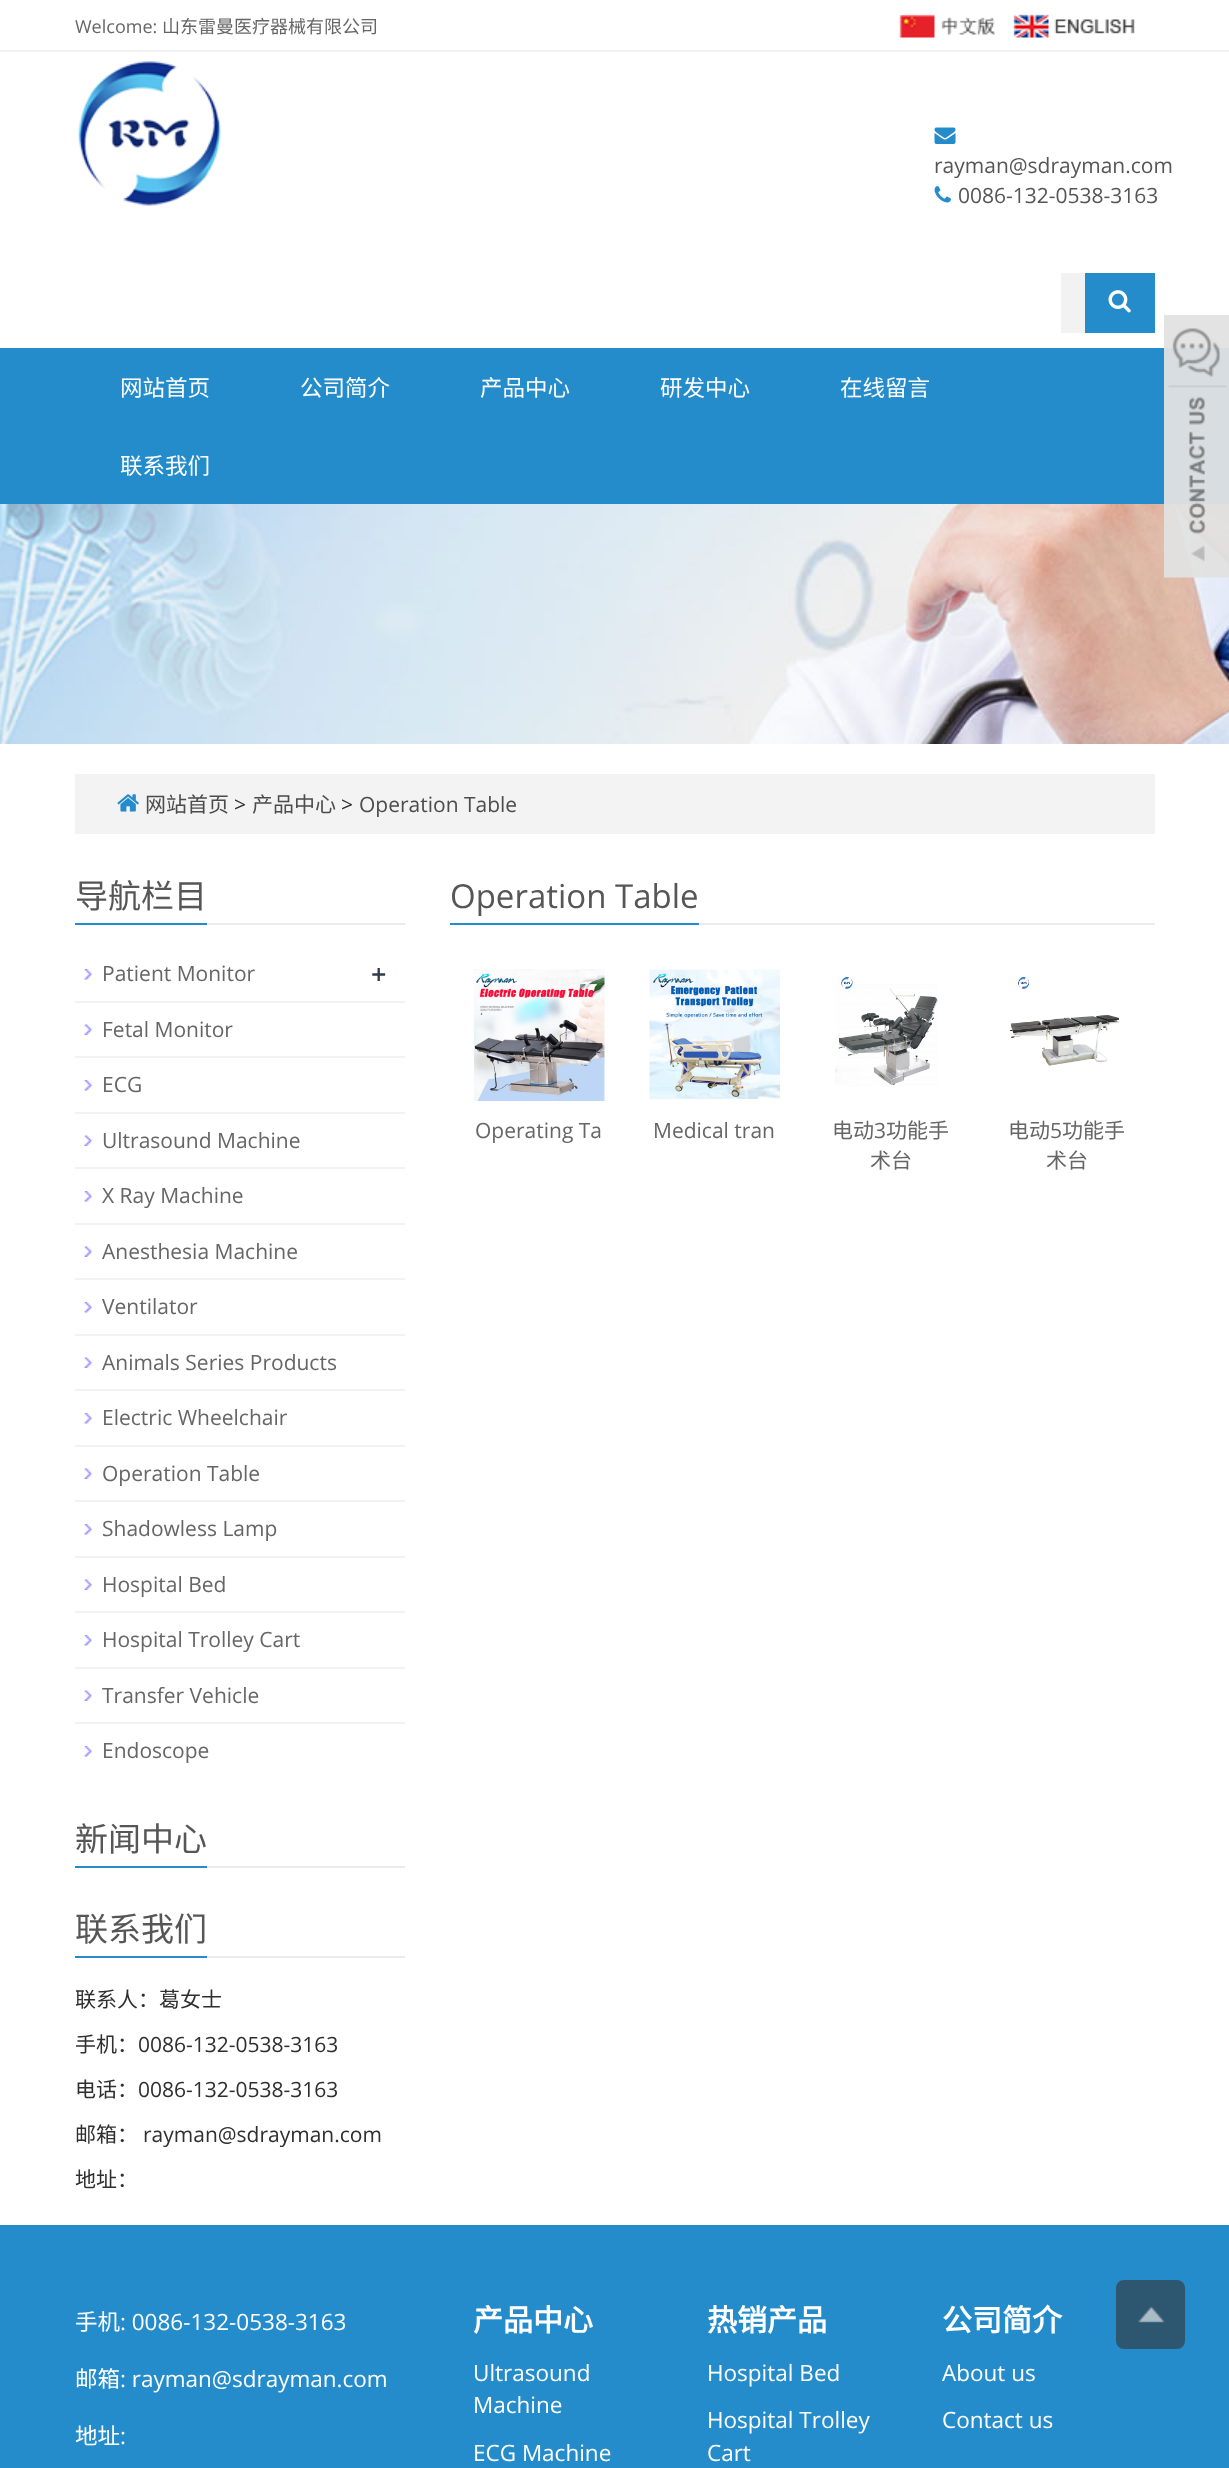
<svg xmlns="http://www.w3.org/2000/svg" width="1229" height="2468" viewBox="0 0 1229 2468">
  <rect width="100%" height="100%" fill="#fff"/>
  <path d="M0 50h1229v2H0z" fill="#f1f1f1"/>
  <image x="899" y="14" width="96" height="24" href="img/1.png"/>
  <image x="1013" y="14" width="122" height="24" href="img/2.png"/>
  <image x="77" y="61" width="144" height="145" href="img/3.png"/>
  <image x="934" y="127" width="22" height="17" href="img/4.png"/>
  <image x="934" y="186" width="17" height="17" href="img/5.png"/>
  <path d="M1061 273h24v60H1061z" fill="#f2f2f2"/>
  <path d="M1085 273h70v60H1085z" fill="#258ccc"/>
  <image x="1108" y="290" width="23" height="23" href="img/6.png"/>
  <path d="M0 348h1229v156H0z" fill="#258ccc"/>
  <image x="0" y="504" width="1229" height="240" href="img/8.png"/>
  <image x="1164" y="315" width="65" height="263" href="img/7.png"/>
  <path d="M75 774h1080v60H75z" fill="#f3f3f3"/>
  <image x="117" y="794" width="22" height="18" href="img/9.png"/>
  <path d="M207 923h198v2H207z" fill="#ebebeb"/>
  <path d="M75 923h132v2H75z" fill="#258ccc"/>
  <image x="84" y="969" width="8" height="11" href="img/10.png"/>
  <path d="M75 1001h330v2H75z" fill="#f2f2f2"/>
  <image x="84" y="1024" width="8" height="11" href="img/11.png"/>
  <path d="M75 1056h330v2H75z" fill="#f2f2f2"/>
  <image x="84" y="1080" width="8" height="11" href="img/10.png"/>
  <path d="M75 1112h330v2H75z" fill="#f2f2f2"/>
  <image x="84" y="1135" width="8" height="11" href="img/11.png"/>
  <path d="M75 1167h330v2H75z" fill="#f2f2f2"/>
  <image x="84" y="1191" width="8" height="11" href="img/10.png"/>
  <path d="M75 1223h330v2H75z" fill="#f2f2f2"/>
  <image x="84" y="1246" width="8" height="11" href="img/11.png"/>
  <path d="M75 1278h330v2H75z" fill="#f2f2f2"/>
  <image x="84" y="1302" width="8" height="11" href="img/10.png"/>
  <path d="M75 1334h330v2H75z" fill="#f2f2f2"/>
  <image x="84" y="1357" width="8" height="11" href="img/11.png"/>
  <path d="M75 1389h330v2H75z" fill="#f2f2f2"/>
  <image x="84" y="1413" width="8" height="11" href="img/10.png"/>
  <path d="M75 1445h330v2H75z" fill="#f2f2f2"/>
  <image x="84" y="1468" width="8" height="11" href="img/11.png"/>
  <path d="M75 1500h330v2H75z" fill="#f2f2f2"/>
  <image x="84" y="1524" width="8" height="11" href="img/10.png"/>
  <path d="M75 1556h330v2H75z" fill="#f2f2f2"/>
  <image x="84" y="1579" width="8" height="11" href="img/11.png"/>
  <path d="M75 1611h330v2H75z" fill="#f2f2f2"/>
  <image x="84" y="1635" width="8" height="11" href="img/10.png"/>
  <path d="M75 1667h330v2H75z" fill="#f2f2f2"/>
  <image x="84" y="1690" width="8" height="11" href="img/11.png"/>
  <path d="M75 1722h330v2H75z" fill="#f2f2f2"/>
  <image x="84" y="1746" width="8" height="11" href="img/10.png"/>
  <path d="M207 1866h198v2H207z" fill="#ebebeb"/>
  <path d="M75 1866h132v2H75z" fill="#258ccc"/>
  <path d="M207 1956h198v2H207z" fill="#ebebeb"/>
  <path d="M75 1956h132v2H75z" fill="#258ccc"/>
  <path d="M699 923h456v2H699z" fill="#ebebeb"/>
  <path d="M450 923h249v2H450z" fill="#258ccc"/>
  <image x="473" y="969" width="132" height="132" href="img/12.png"/>
  <image x="649" y="969" width="131" height="131" href="img/13.png"/>
  <image x="835" y="976" width="103" height="110" href="img/14.png"/>
  <image x="1010" y="976" width="110" height="90" href="img/15.png"/>
  <path d="M0 2225h1229v243H0z" fill="#258ccc"/>
  <rect x="1116" y="2280" width="69" height="69" rx="8" fill="#2d5770"/>
  <image x="1138" y="2306" width="27" height="17" href="img/16.png"/>
  <text x="75" y="33" font-family="Open Sans" font-size="18" fill="#666">Welcome:</text>
  <text x="162" y="33" font-family="Noto Sans CJK SC" font-size="18" fill="#666">山东雷曼医疗器械有限公司</text>
  <g font-family="Open Sans" font-size="21" fill="#565656">
    <text x="934" y="173">rayman@sdrayman.com</text>
    <text x="958" y="203">0086-132-0538-3163</text>
  </g>
  <g font-family="Noto Sans CJK SC" font-size="22.5" fill="#fff">
    <text x="120" y="396">网站首页</text>
    <text x="300" y="396">公司简介</text>
    <text x="480" y="396">产品中心</text>
    <text x="660" y="396">研发中心</text>
    <text x="840" y="396">在线留言</text>
    <text x="120" y="474">联系我们</text>
  </g>
  <text x="145" y="812" font-family="Noto Sans CJK SC" font-size="21" fill="#4c4c4c">网站首页</text>
  <text x="234" y="812" font-family="Open Sans" font-size="21" fill="#2f2f2f">&gt;</text>
  <text x="252" y="812" font-family="Noto Sans CJK SC" font-size="21" fill="#4c4c4c">产品中心</text>
  <text x="341" y="812" font-family="Open Sans" font-size="21" fill="#2f2f2f">&gt;</text>
  <text x="359" y="812" font-family="Open Sans" font-size="21" fill="#4c4c4c">Operation Table</text>
  <text x="75" y="908" font-family="Noto Sans CJK SC" font-size="33" fill="#565656">导航栏目</text>
  <text x="102" y="981" font-family="Open Sans" font-size="21" fill="#666">Patient Monitor</text>
  <text x="371" y="984" font-family="Open Sans" font-size="27" font-weight="600" fill="#303c4b">+</text>
  <g font-family="Open Sans" font-size="21" fill="#666">
    <text x="102" y="1037">Fetal Monitor</text>
    <text x="102" y="1092">ECG</text>
    <text x="102" y="1148">Ultrasound Machine</text>
    <text x="102" y="1203">X Ray Machine</text>
    <text x="102" y="1259">Anesthesia Machine</text>
    <text x="102" y="1314">Ventilator</text>
    <text x="102" y="1370">Animals Series Products</text>
    <text x="102" y="1425">Electric Wheelchair</text>
    <text x="102" y="1481">Operation Table</text>
    <text x="102" y="1536">Shadowless Lamp</text>
    <text x="102" y="1592">Hospital Bed</text>
    <text x="102" y="1647">Hospital Trolley Cart</text>
    <text x="102" y="1703">Transfer Vehicle</text>
    <text x="102" y="1758">Endoscope</text>
  </g>
  <g font-family="Noto Sans CJK SC" font-size="33" fill="#565656">
    <text x="75" y="1851">新闻中心</text>
    <text x="75" y="1941">联系我们</text>
  </g>
  <g font-family="Noto Sans CJK SC" font-size="21" fill="#2f2f2f">
    <text x="75" y="2007">联系人：葛女士</text>
    <text x="75" y="2052">手机：</text>
  </g>
  <text x="138" y="2052" font-family="Open Sans" font-size="21" fill="#2f2f2f">0086-132-0538-3163</text>
  <text x="75" y="2097" font-family="Noto Sans CJK SC" font-size="21" fill="#2f2f2f">电话：</text>
  <text x="138" y="2097" font-family="Open Sans" font-size="21" fill="#2f2f2f">0086-132-0538-3163</text>
  <text x="75" y="2142" font-family="Noto Sans CJK SC" font-size="21" fill="#2f2f2f">邮箱：</text>
  <text x="143" y="2142" font-family="Open Sans" font-size="21" fill="#2f2f2f">rayman@sdrayman.com</text>
  <text x="75" y="2187" font-family="Noto Sans CJK SC" font-size="21" fill="#2f2f2f">地址：</text>
  <text x="450" y="908" font-family="Open Sans" font-size="33" fill="#565656">Operation Table</text>
  <g font-family="Open Sans" font-size="21" fill="#666">
    <text x="475" y="1138">Operating Ta</text>
    <text x="653" y="1138">Medical tran</text>
  </g>
  <text x="832" y="1138" font-family="Noto Sans CJK SC" font-size="21" fill="#666">电动</text>
  <text x="874" y="1138" font-family="Open Sans" font-size="21" fill="#666">3</text>
  <g font-family="Noto Sans CJK SC" font-size="21" fill="#666">
    <text x="886" y="1138">功能手</text>
    <text x="870" y="1168">术台</text>
    <text x="1008" y="1138">电动</text>
  </g>
  <text x="1050" y="1138" font-family="Open Sans" font-size="21" fill="#666">5</text>
  <g font-family="Noto Sans CJK SC" font-size="21" fill="#666">
    <text x="1062" y="1138">功能手</text>
    <text x="1046" y="1168">术台</text>
  </g>
  <text x="75" y="2330" font-family="Noto Sans CJK SC" font-size="22.5" fill="#fff">手机</text>
  <text x="120" y="2330" font-family="Open Sans" font-size="22.5" fill="#fff">: 0086-132-0538-3163</text>
  <text x="75" y="2387" font-family="Noto Sans CJK SC" font-size="22.5" fill="#fff">邮箱</text>
  <text x="120" y="2387" font-family="Open Sans" font-size="22.5" fill="#fff">: rayman@sdrayman.com</text>
  <text x="75" y="2444" font-family="Noto Sans CJK SC" font-size="22.5" fill="#fff">地址</text>
  <text x="120" y="2444" font-family="Open Sans" font-size="22.5" fill="#fff">:</text>
  <text x="473" y="2331" font-family="Noto Sans CJK SC" font-size="30" font-weight="bold" fill="#fff">产品中心</text>
  <g font-family="Open Sans" font-size="22.5" fill="#fff">
    <text x="473" y="2381">Ultrasound</text>
    <text x="473" y="2413">Machine</text>
    <text x="473" y="2461">ECG Machine</text>
  </g>
  <text x="707" y="2331" font-family="Noto Sans CJK SC" font-size="30" font-weight="bold" fill="#fff">热销产品</text>
  <g font-family="Open Sans" font-size="22.5" fill="#fff">
    <text x="707" y="2381">Hospital Bed</text>
    <text x="707" y="2428">Hospital Trolley</text>
    <text x="707" y="2461">Cart</text>
  </g>
  <text x="942" y="2331" font-family="Noto Sans CJK SC" font-size="30" font-weight="bold" fill="#fff">公司简介</text>
  <g font-family="Open Sans" font-size="22.5" fill="#fff">
    <text x="942" y="2381">About us</text>
    <text x="942" y="2428">Contact us</text>
  </g>
</svg>
